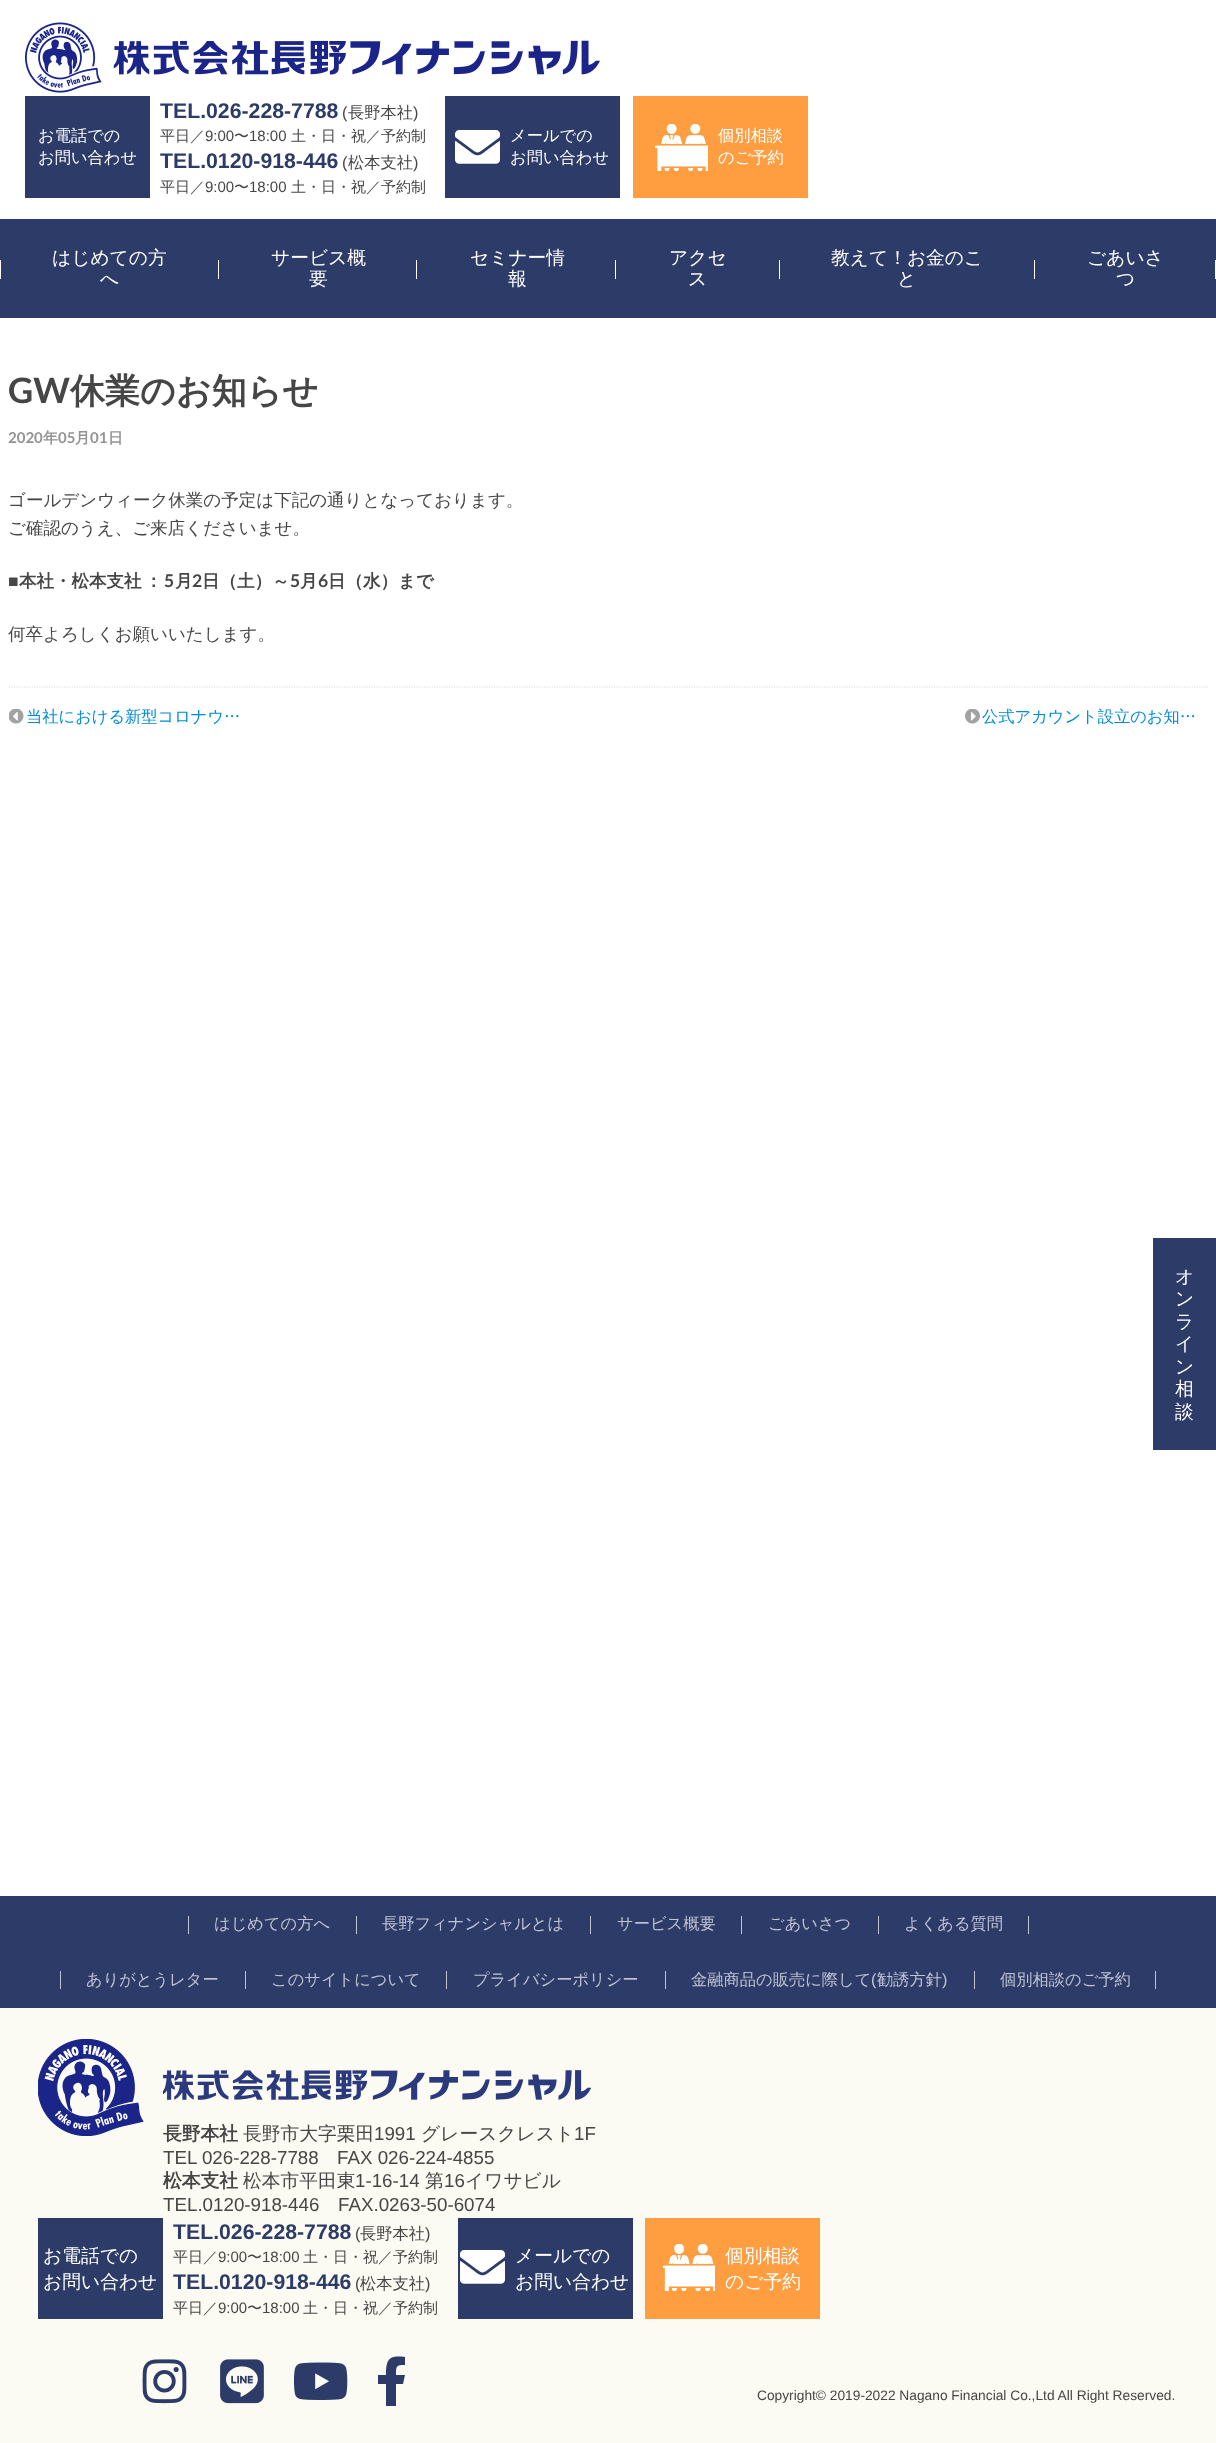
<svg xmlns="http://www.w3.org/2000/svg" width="1216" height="2443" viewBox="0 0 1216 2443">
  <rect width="100%" height="100%" fill="#fff"/>
  <image x="25" y="22" width="575" height="71" href="img/1.png"/>
  <path d="M25 96h125v102H25z" fill="#2d3b69"/>
  <path d="M445 96h175v102H445z" fill="#2d3b69"/>
  <image x="455" y="130" width="45" height="34" href="img/2.png"/>
  <path d="M633 96h175v102H633z" fill="#ff9e40"/>
  <image x="655" y="124" width="53" height="47" href="img/3.png"/>
  <path d="M0 219h1216v99H0z" fill="#2d3b69"/>
  <path d="M0 260h1v19H0z" fill="#fff"/>
  <path d="M218 260h1v19H218z" fill="#fff"/>
  <path d="M416 260h1v19H416z" fill="#fff"/>
  <path d="M615 260h1v19H615z" fill="#fff"/>
  <path d="M779 260h1v19H779z" fill="#fff"/>
  <path d="M1034 260h1v19H1034z" fill="#fff"/>
  <path d="M1215 260h1v19H1215z" fill="#fff"/>
  <path d="M1153 1238h63v212H1153z" fill="#2d3b69"/>
  <path d="M9 687H1209" fill="none" stroke="#dadada" stroke-width="1.2" stroke-dasharray="1.25 1.25"/>
  <image x="9" y="709" width="15" height="15" href="img/4.png"/>
  <image x="965" y="709" width="15" height="15" href="img/5.png"/>
  <path d="M0 2008h1216v435H0z" fill="#fcfbf3"/>
  <path d="M0 1896h1216v112H0z" fill="#2d3b69"/>
  <path d="M188 1916h1v18H188z" fill="#c0c4d2"/>
  <path d="M356 1916h1v18H356z" fill="#c0c4d2"/>
  <path d="M590 1916h1v18H590z" fill="#c0c4d2"/>
  <path d="M741 1916h1v18H741z" fill="#c0c4d2"/>
  <path d="M878 1916h1v18H878z" fill="#c0c4d2"/>
  <path d="M1028 1916h1v18H1028z" fill="#c0c4d2"/>
  <path d="M60 1971h1v18H60z" fill="#c0c4d2"/>
  <path d="M245 1971h1v18H245z" fill="#c0c4d2"/>
  <path d="M446 1971h1v18H446z" fill="#c0c4d2"/>
  <path d="M665 1971h1v18H665z" fill="#c0c4d2"/>
  <path d="M974 1971h1v18H974z" fill="#c0c4d2"/>
  <path d="M1155 1971h1v18H1155z" fill="#c0c4d2"/>
  <image x="38" y="2039" width="106" height="97" href="img/6.png"/>
  <image x="163" y="2070" width="428" height="30" href="img/7.png"/>
  <path d="M38 2218h125v101H38z" fill="#2d3b69"/>
  <path d="M458 2218h175v101H458z" fill="#2d3b69"/>
  <image x="460" y="2250" width="45" height="34" href="img/2.png"/>
  <path d="M645 2218h175v101H645z" fill="#ff9e40"/>
  <image x="663" y="2244" width="52" height="47" href="img/8.png"/>
  <image x="142" y="2359" width="45" height="45" href="img/9.png"/>
  <image x="220" y="2359" width="44" height="45" href="img/10.png"/>
  <image x="293" y="2362" width="55" height="38" href="img/11.png"/>
  <path d="M403 2384H396V2406H386V2384H378V2375H386C386 2359 389 2355 405 2357V2365C396 2365 396 2366 396 2375H405Z" fill="#2d3b69"/>
  <g font-family="WenQuanYi Zen Hei" font-size="16.25" font-weight="500" fill="#fff">
    <text x="38" y="141">お電話での</text>
    <text x="38" y="163">お問い合わせ</text>
  </g>
  <text x="160" y="118" font-family="Liberation Sans" font-size="21.25" font-weight="bold" fill="#2d3b69">TEL.026-228-7788</text>
  <text x="342" y="118" font-family="Liberation Sans" font-size="16.25" fill="#464646">(</text>
  <text x="348" y="118" font-family="WenQuanYi Zen Hei" font-size="16.25" font-weight="500" fill="#464646">長野本社</text>
  <text x="413" y="118" font-family="Liberation Sans" font-size="16.25" fill="#464646">)</text>
  <text x="160" y="141" font-family="WenQuanYi Zen Hei" font-size="15" font-weight="500" fill="#464646">平日／</text>
  <text x="205" y="141" font-family="Liberation Sans" font-size="15" fill="#464646">9:00</text>
  <text x="234" y="141" font-family="WenQuanYi Zen Hei" font-size="15" font-weight="500" fill="#464646">〜</text>
  <text x="249" y="141" font-family="Liberation Sans" font-size="15" fill="#464646">18:00</text>
  <text x="291" y="141" font-family="WenQuanYi Zen Hei" font-size="15" font-weight="500" fill="#464646">土・日・祝／予約制</text>
  <text x="160" y="168" font-family="Liberation Sans" font-size="21.25" font-weight="bold" fill="#2d3b69">TEL.0120-918-446</text>
  <text x="342" y="168" font-family="Liberation Sans" font-size="16.25" fill="#464646">(</text>
  <text x="348" y="168" font-family="WenQuanYi Zen Hei" font-size="16.25" font-weight="500" fill="#464646">松本支社</text>
  <text x="413" y="168" font-family="Liberation Sans" font-size="16.25" fill="#464646">)</text>
  <text x="160" y="192" font-family="WenQuanYi Zen Hei" font-size="15" font-weight="500" fill="#464646">平日／</text>
  <text x="205" y="192" font-family="Liberation Sans" font-size="15" fill="#464646">9:00</text>
  <text x="234" y="192" font-family="WenQuanYi Zen Hei" font-size="15" font-weight="500" fill="#464646">〜</text>
  <text x="249" y="192" font-family="Liberation Sans" font-size="15" fill="#464646">18:00</text>
  <text x="291" y="192" font-family="WenQuanYi Zen Hei" font-size="15" font-weight="500" fill="#464646">土・日・祝／予約制</text>
  <g font-family="WenQuanYi Zen Hei" font-size="16.25" font-weight="500" fill="#fff">
    <text x="510" y="141">メールでの</text>
    <text x="510" y="163">お問い合わせ</text>
    <text x="718" y="141">個別相談</text>
    <text x="718" y="163">のご予約</text>
  </g>
  <g font-family="WenQuanYi Zen Hei" font-size="18.75" font-weight="500" fill="#fff">
    <text x="52" y="264">はじめての方</text>
    <text x="100" y="285">へ</text>
    <text x="271" y="264">サービス概</text>
    <text x="309" y="285">要</text>
    <text x="470" y="264">セミナー情</text>
    <text x="508" y="285">報</text>
    <text x="669" y="264">アクセ</text>
    <text x="688" y="285">ス</text>
    <text x="831" y="264">教えて！お金のこ</text>
    <text x="897" y="285">と</text>
    <text x="1087" y="264">ごあいさ</text>
    <text x="1116" y="285">つ</text>
  </g>
  <g font-family="WenQuanYi Zen Hei" font-size="18.75" font-weight="500" letter-spacing="2" fill="#fff">
    <text x="1175" y="1283">オ</text>
    <text x="1175" y="1305">ン</text>
    <text x="1175" y="1328">ラ</text>
    <text x="1175" y="1350">イ</text>
    <text x="1175" y="1373">ン</text>
    <text x="1175" y="1395">相</text>
    <text x="1175" y="1418">談</text>
  </g>
  <text x="8" y="403" font-family="Lato" font-size="35" font-weight="bold" fill="#464646">GW</text>
  <text x="70" y="403" font-family="WenQuanYi Zen Hei" font-size="35" font-weight="bold" fill="#464646">休業のお知らせ</text>
  <text x="8" y="443" font-family="Lato" font-size="15" font-weight="bold" fill="#939393">2020</text>
  <text x="43" y="443" font-family="WenQuanYi Zen Hei" font-size="15" font-weight="bold" fill="#939393">年</text>
  <text x="58" y="443" font-family="Lato" font-size="15" font-weight="bold" fill="#939393">05</text>
  <text x="75" y="443" font-family="WenQuanYi Zen Hei" font-size="15" font-weight="bold" fill="#939393">月</text>
  <text x="90" y="443" font-family="Lato" font-size="15" font-weight="bold" fill="#939393">01</text>
  <text x="108" y="443" font-family="WenQuanYi Zen Hei" font-size="15" font-weight="bold" fill="#939393">日</text>
  <g font-family="WenQuanYi Zen Hei" font-size="17.5" font-weight="500" fill="#464646">
    <text x="8" y="506">ゴールデンウィーク休業の予定は下記の通りとなっております。</text>
    <text x="8" y="534">ご確認のうえ、ご来店くださいませ。</text>
  </g>
  <text x="8" y="587" font-family="Liberation Sans" font-size="17.5" font-weight="bold" fill="#464646">■</text>
  <text x="19" y="587" word-spacing="-2" font-family="WenQuanYi Zen Hei" font-size="17.5" font-weight="bold" fill="#464646">本社・松本支社 ：</text>
  <text x="164" y="587" font-family="Lato" font-size="17.5" font-weight="bold" fill="#464646">5</text>
  <text x="175" y="587" font-family="WenQuanYi Zen Hei" font-size="17.5" font-weight="bold" fill="#464646">月</text>
  <text x="192" y="587" font-family="Lato" font-size="17.5" font-weight="bold" fill="#464646">2</text>
  <text x="202" y="587" font-family="WenQuanYi Zen Hei" font-size="17.5" font-weight="bold" fill="#464646">日（土）～</text>
  <text x="290" y="587" font-family="Lato" font-size="17.5" font-weight="bold" fill="#464646">5</text>
  <text x="300" y="587" font-family="WenQuanYi Zen Hei" font-size="17.5" font-weight="bold" fill="#464646">月</text>
  <text x="318" y="587" font-family="Lato" font-size="17.5" font-weight="bold" fill="#464646">6</text>
  <text x="328" y="587" font-family="WenQuanYi Zen Hei" font-size="17.5" font-weight="bold" fill="#464646">日（水）まで</text>
  <text x="8" y="640" font-family="WenQuanYi Zen Hei" font-size="17.5" font-weight="500" fill="#464646">何卒よろしくお願いいたします。</text>
  <g font-family="WenQuanYi Zen Hei" font-size="16.25" font-weight="500" fill="#008cd6">
    <text x="26" y="722">当社における新型コロナウ…</text>
    <text x="982" y="722">公式アカウント設立のお知…</text>
  </g>
  <g font-family="WenQuanYi Zen Hei" font-size="16.25" font-weight="500" fill="#c0c4d2">
    <text x="214" y="1929">はじめての方へ</text>
    <text x="382" y="1929">長野フィナンシャルとは</text>
    <text x="617" y="1929">サービス概要</text>
    <text x="768" y="1929">ごあいさつ</text>
    <text x="904" y="1929">よくある質問</text>
    <text x="86" y="1985">ありがとうレター</text>
    <text x="271" y="1985">このサイトについて</text>
    <text x="473" y="1985">プライバシーポリシー</text>
    <text x="691" y="1985">金融商品の販売に際して</text>
  </g>
  <text x="871" y="1985" font-family="Liberation Sans" font-size="16.25" fill="#c0c4d2">(</text>
  <text x="877" y="1985" font-family="WenQuanYi Zen Hei" font-size="16.25" font-weight="500" fill="#c0c4d2">勧誘方針</text>
  <text x="942" y="1985" font-family="Liberation Sans" font-size="16.25" fill="#c0c4d2">)</text>
  <text x="1000" y="1985" font-family="WenQuanYi Zen Hei" font-size="16.25" font-weight="500" fill="#c0c4d2">個別相談のご予約</text>
  <text x="163" y="2140" font-family="WenQuanYi Zen Hei" font-size="18.75" font-weight="bold" fill="#464646">長野本社</text>
  <text x="243" y="2140" font-family="WenQuanYi Zen Hei" font-size="18.75" font-weight="500" fill="#464646">長野市大字栗田</text>
  <text x="374" y="2140" font-family="Liberation Sans" font-size="18.75" fill="#464646">1991</text>
  <text x="421" y="2140" font-family="WenQuanYi Zen Hei" font-size="18.75" font-weight="500" fill="#464646">グレースクレスト</text>
  <g font-family="Liberation Sans" font-size="18.75" fill="#464646">
    <text x="574" y="2140">1F</text>
    <text x="163" y="2164">TEL 026-228-7788</text>
    <text x="337" y="2164">FAX 026-224-4855</text>
  </g>
  <text x="163" y="2187" font-family="WenQuanYi Zen Hei" font-size="18.75" font-weight="bold" fill="#464646">松本支社</text>
  <text x="243" y="2187" font-family="WenQuanYi Zen Hei" font-size="18.75" font-weight="500" fill="#464646">松本市平田東</text>
  <text x="355" y="2187" font-family="Liberation Sans" font-size="18.75" fill="#464646">1-16-14</text>
  <text x="425" y="2187" font-family="WenQuanYi Zen Hei" font-size="18.75" font-weight="500" fill="#464646">第</text>
  <text x="444" y="2187" font-family="Liberation Sans" font-size="18.75" fill="#464646">16</text>
  <text x="465" y="2187" font-family="WenQuanYi Zen Hei" font-size="18.75" font-weight="500" fill="#464646">イワサビル</text>
  <g font-family="Liberation Sans" font-size="18.75" fill="#464646">
    <text x="163" y="2211">TEL.0120-918-446</text>
    <text x="338" y="2211">FAX.0263-50-6074</text>
  </g>
  <g font-family="WenQuanYi Zen Hei" font-size="18.75" font-weight="500" fill="#fff">
    <text x="43" y="2262">お電話での</text>
    <text x="43" y="2288">お問い合わせ</text>
  </g>
  <text x="173" y="2239" font-family="Liberation Sans" font-size="21.25" font-weight="bold" fill="#2d3b69">TEL.026-228-7788</text>
  <text x="355" y="2239" font-family="Liberation Sans" font-size="16.25" fill="#464646">(</text>
  <text x="360" y="2239" font-family="WenQuanYi Zen Hei" font-size="16.25" font-weight="500" fill="#464646">長野本社</text>
  <text x="425" y="2239" font-family="Liberation Sans" font-size="16.25" fill="#464646">)</text>
  <text x="173" y="2262" font-family="WenQuanYi Zen Hei" font-size="15" font-weight="500" fill="#464646">平日／</text>
  <text x="218" y="2262" font-family="Liberation Sans" font-size="15" fill="#464646">9:00</text>
  <text x="247" y="2262" font-family="WenQuanYi Zen Hei" font-size="15" font-weight="500" fill="#464646">〜</text>
  <text x="262" y="2262" font-family="Liberation Sans" font-size="15" fill="#464646">18:00</text>
  <text x="303" y="2262" font-family="WenQuanYi Zen Hei" font-size="15" font-weight="500" fill="#464646">土・日・祝／予約制</text>
  <text x="173" y="2289" font-family="Liberation Sans" font-size="21.25" font-weight="bold" fill="#2d3b69">TEL.0120-918-446</text>
  <text x="355" y="2289" font-family="Liberation Sans" font-size="16.25" fill="#464646">(</text>
  <text x="360" y="2289" font-family="WenQuanYi Zen Hei" font-size="16.25" font-weight="500" fill="#464646">松本支社</text>
  <text x="425" y="2289" font-family="Liberation Sans" font-size="16.25" fill="#464646">)</text>
  <text x="173" y="2313" font-family="WenQuanYi Zen Hei" font-size="15" font-weight="500" fill="#464646">平日／</text>
  <text x="218" y="2313" font-family="Liberation Sans" font-size="15" fill="#464646">9:00</text>
  <text x="247" y="2313" font-family="WenQuanYi Zen Hei" font-size="15" font-weight="500" fill="#464646">〜</text>
  <text x="262" y="2313" font-family="Liberation Sans" font-size="15" fill="#464646">18:00</text>
  <text x="303" y="2313" font-family="WenQuanYi Zen Hei" font-size="15" font-weight="500" fill="#464646">土・日・祝／予約制</text>
  <g font-family="WenQuanYi Zen Hei" font-size="18.75" font-weight="500" fill="#fff">
    <text x="515" y="2262">メールでの</text>
    <text x="515" y="2288">お問い合わせ</text>
    <text x="725" y="2262">個別相談</text>
    <text x="725" y="2288">のご予約</text>
  </g>
  <text x="757" y="2400" font-family="Liberation Sans" font-size="13.75" fill="#464646">Copyright© 2019-2022 Nagano Financial Co.,Ltd All Right Reserved.</text>
</svg>
